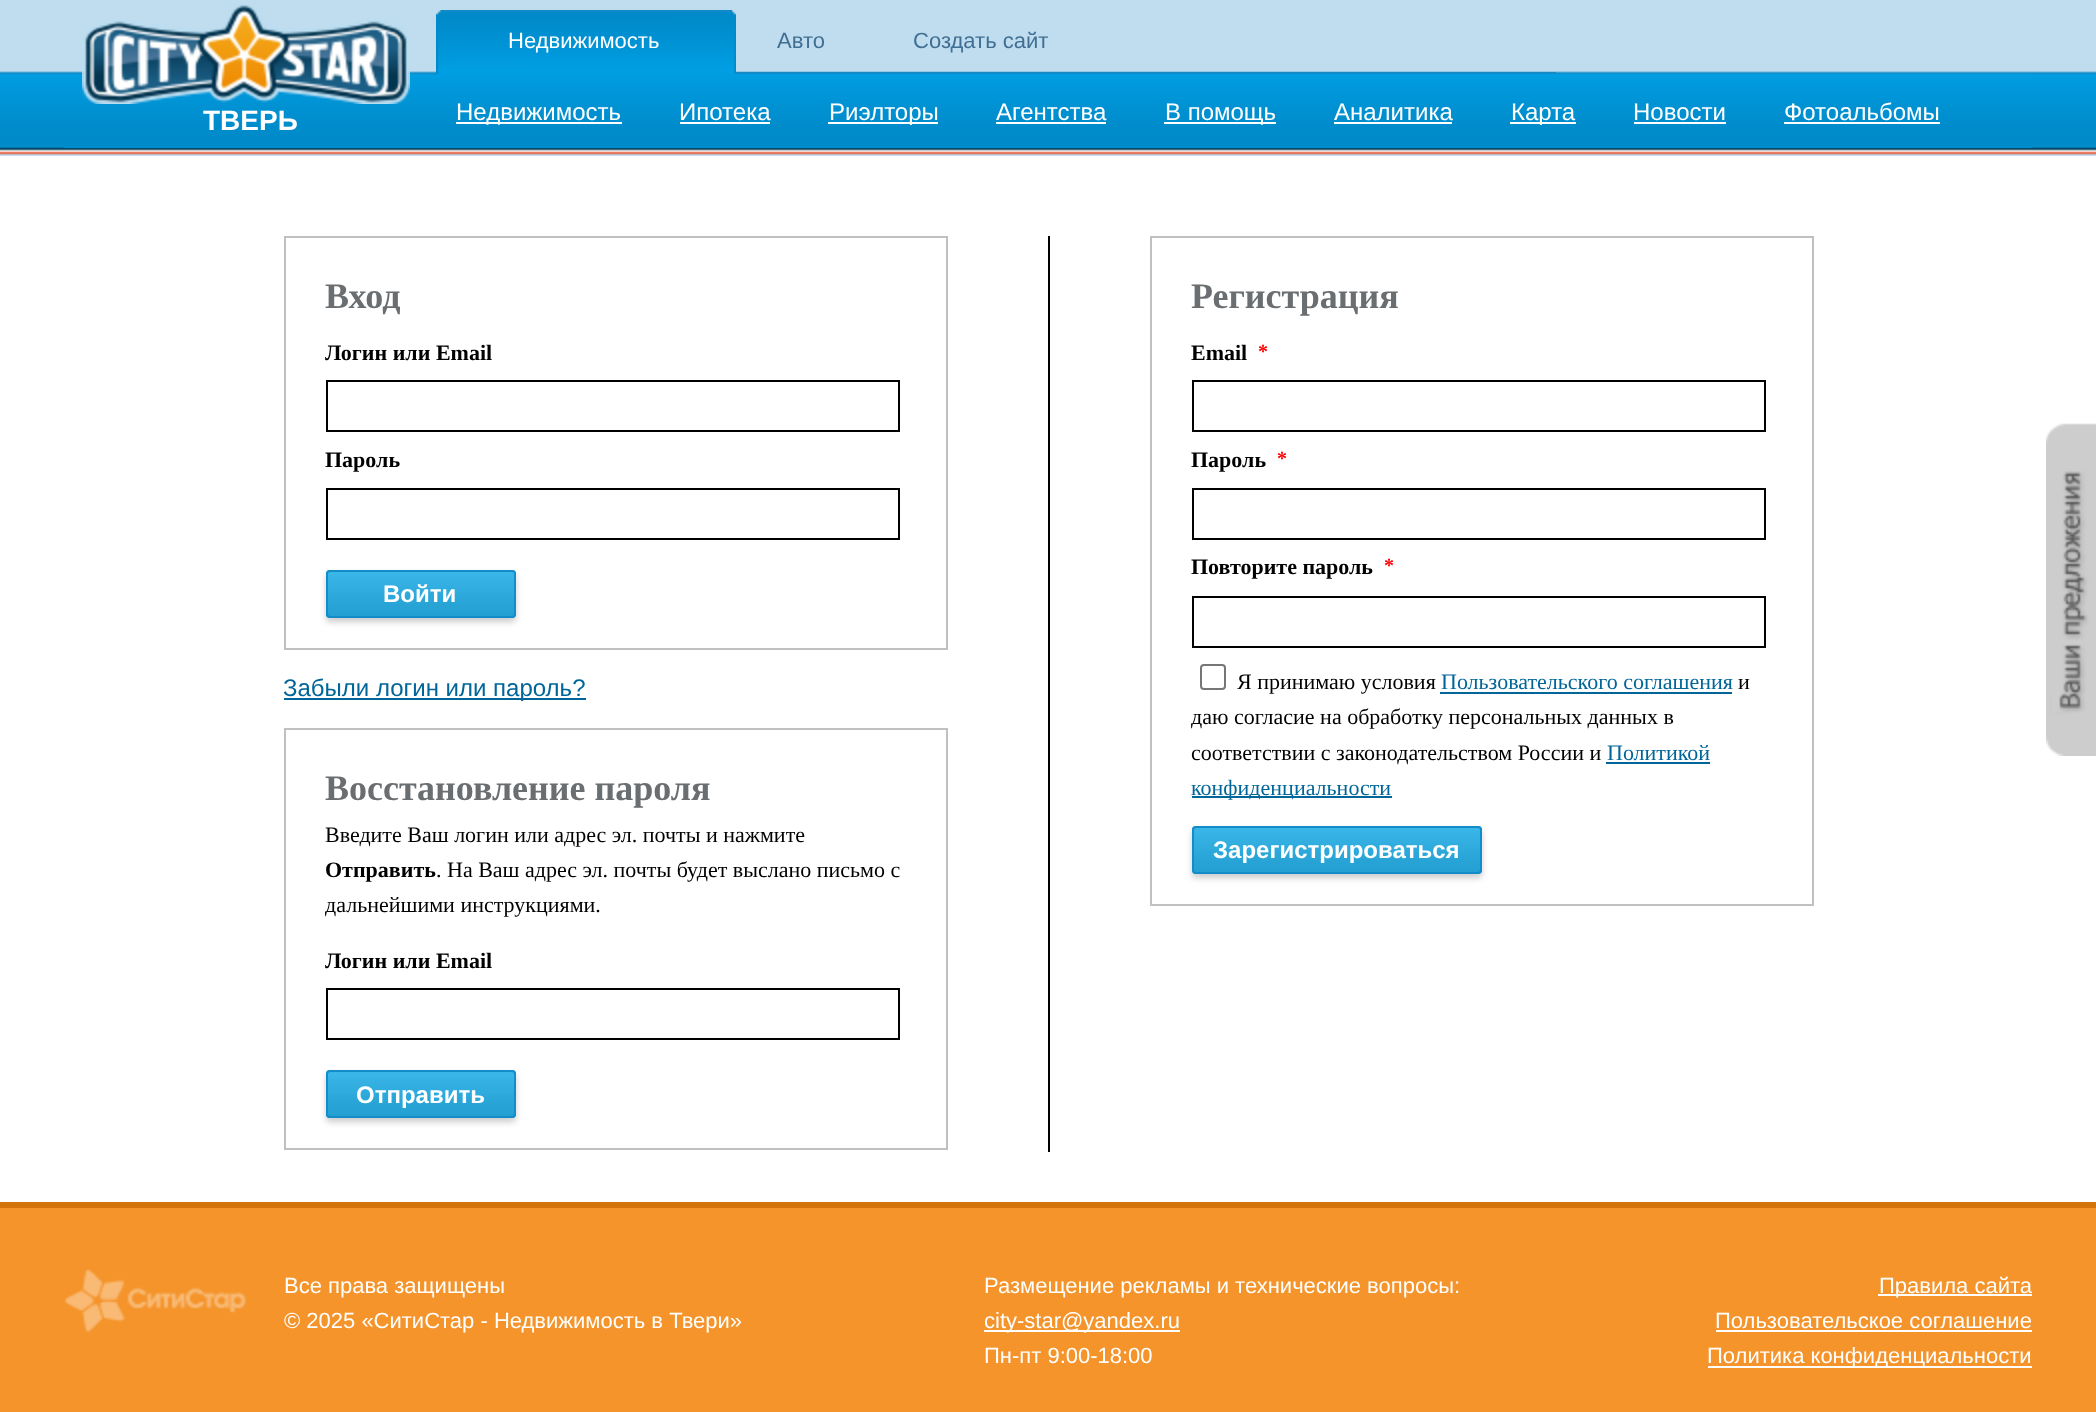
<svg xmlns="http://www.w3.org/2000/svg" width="2096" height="1412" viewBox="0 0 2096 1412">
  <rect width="100%" height="100%" fill="#fff"/>
  <path d="M0 0h2096v156H0z" fill="#c0ddef"/>
  <image x="0" y="71" width="2096" height="84" href="img/1.png"/>
  <image x="64" y="71" width="372" height="77" href="img/2.png"/>
  <image x="82" y="4" width="328" height="100" href="img/3.png"/>
  <path d="M736 72h820v2H736z" fill="#128ac7"/>
  <image x="732" y="10" width="4" height="64" href="img/4.png"/>
  <image x="436" y="10" width="296" height="64" href="img/5.png"/>
  <image x="436" y="74" width="1596" height="74" href="img/6.png"/>
  <path d="M456 122h166v2H456z" fill="#fff"/>
  <path d="M680 122h90v2H680z" fill="#fff"/>
  <path d="M828 122h110v2H828z" fill="#fff"/>
  <path d="M996 122h110v2H996z" fill="#fff"/>
  <path d="M1164 122h112v2H1164z" fill="#fff"/>
  <path d="M1334 122h118v2H1334z" fill="#fff"/>
  <path d="M1510 122h66v2H1510z" fill="#fff"/>
  <path d="M1634 122h92v2H1634z" fill="#fff"/>
  <path d="M1784 122h156v2H1784z" fill="#fff"/>
  <path d="M1048 236h2v916H1048z" fill="#000"/>
  <path d="M285 237h662v412H285z" fill="none" stroke="#c0c0c0" stroke-width="2"/>
  <path d="M327 381h572v50H327z" fill="none" stroke="#000" stroke-width="2"/>
  <path d="M327 489h572v50H327z" fill="none" stroke="#000" stroke-width="2"/>
  <rect x="326" y="574" width="190" height="48" rx="4" fill="#00000033" filter="blur(3px)"/>
  <image x="326" y="570" width="190" height="48" href="img/7.png"/>
  <rect x="327" y="571" width="188" height="46" rx="3" fill="none" stroke="#128dc9" stroke-width="2"/>
  <path d="M284 698h302v2H284z" fill="#069"/>
  <path d="M285 729h662v420H285z" fill="none" stroke="#c0c0c0" stroke-width="2"/>
  <path d="M327 989h572v50H327z" fill="none" stroke="#000" stroke-width="2"/>
  <rect x="326" y="1074" width="190" height="48" rx="4" fill="#00000033" filter="blur(3px)"/>
  <image x="326" y="1070" width="190" height="48" href="img/7.png"/>
  <rect x="327" y="1071" width="188" height="46" rx="3" fill="none" stroke="#128dc9" stroke-width="2"/>
  <path d="M1151 237h662v668H1151z" fill="none" stroke="#c0c0c0" stroke-width="2"/>
  <path d="M1193 381h572v50H1193z" fill="none" stroke="#000" stroke-width="2"/>
  <path d="M1193 489h572v50H1193z" fill="none" stroke="#000" stroke-width="2"/>
  <path d="M1193 597h572v50H1193z" fill="none" stroke="#000" stroke-width="2"/>
  <rect x="1201" y="665" width="24" height="24" rx="3" fill="none" stroke="#767676" stroke-width="2"/>
  <path d="M1440 692h292v2H1440z" fill="#069"/>
  <path d="M1606 762h104v2H1606z" fill="#069"/>
  <path d="M1192 796h200v2H1192z" fill="#069"/>
  <rect x="1192" y="830" width="290" height="48" rx="4" fill="#00000033" filter="blur(3px)"/>
  <image x="1192" y="826" width="290" height="48" href="img/8.png"/>
  <rect x="1193" y="827" width="288" height="46" rx="3" fill="none" stroke="#128dc9" stroke-width="2"/>
  <image x="2046" y="423" width="50" height="333" href="img/9.png"/>
  <path d="M0 1208h2096v204H0z" fill="#f4942a"/>
  <path d="M0 1202h2096v6H0z" fill="#d3740c"/>
  <image x="64" y="1269" width="183" height="64" href="img/10.png"/>
  <path d="M984 1330h196v2H984z" fill="#fff"/>
  <path d="M1878 1294h154v2H1878z" fill="#fff"/>
  <path d="M1716 1330h316v2H1716z" fill="#fff"/>
  <path d="M1708 1366h324v2H1708z" fill="#fff"/>
  <text x="203" y="130" font-family="Liberation Sans" font-size="28" font-weight="bold" fill="#fff">ТВЕРЬ</text>
  <text x="508" y="48" font-family="Liberation Sans" font-size="22" fill="#fff">Недвижимость</text>
  <g font-family="Liberation Sans" font-size="22" fill="#406f93">
    <text x="777" y="48">Авто</text>
    <text x="913" y="48">Создать сайт</text>
  </g>
  <g font-family="Liberation Sans" font-size="24" fill="#fff">
    <text x="456" y="120">Недвижимость</text>
    <text x="679" y="120">Ипотека</text>
    <text x="829" y="120">Риэлторы</text>
    <text x="996" y="120">Агентства</text>
    <text x="1165" y="120">В помощь</text>
    <text x="1334" y="120">Аналитика</text>
    <text x="1511" y="120">Карта</text>
    <text x="1633" y="120">Новости</text>
    <text x="1784" y="120">Фотоальбомы</text>
  </g>
  <text x="325" y="308" font-family="Liberation Serif" font-size="36" font-weight="bold" fill="#6a6e71">Вход</text>
  <g font-family="Liberation Serif" font-size="22" font-weight="bold" fill="#000">
    <text x="325" y="360">Логин или Email</text>
    <text x="325" y="467">Пароль</text>
  </g>
  <text x="383" y="602" font-family="Liberation Sans" font-size="24" font-weight="bold" fill="#fff">Войти</text>
  <text x="283" y="696" font-family="Liberation Sans" font-size="24" fill="#069">Забыли логин или пароль?</text>
  <text x="325" y="800" font-family="Liberation Serif" font-size="36" font-weight="bold" fill="#6a6e71">Восстановление пароля</text>
  <text x="325" y="842" font-family="Liberation Serif" font-size="22" fill="#000">Введите Ваш логин или адрес эл. почты и нажмите</text>
  <text x="325" y="877" font-family="Liberation Serif" font-size="22" font-weight="bold" fill="#000">Отправить</text>
  <g font-family="Liberation Serif" font-size="22" fill="#000">
    <text x="436" y="877">. На Ваш адрес эл. почты будет выслано письмо с</text>
    <text x="325" y="912">дальнейшими инструкциями.</text>
  </g>
  <text x="325" y="968" font-family="Liberation Serif" font-size="22" font-weight="bold" fill="#000">Логин или Email</text>
  <text x="356" y="1103" font-family="Liberation Sans" font-size="24" font-weight="bold" fill="#fff">Отправить</text>
  <text x="1191" y="308" font-family="Liberation Serif" font-size="36" font-weight="bold" fill="#6a6e71">Регистрация</text>
  <text x="1191" y="360" font-family="Liberation Serif" font-size="22" font-weight="bold" fill="#000">Email</text>
  <text x="1258" y="358" font-family="Liberation Serif" font-size="20" font-weight="bold" fill="#f00">*</text>
  <text x="1191" y="467" font-family="Liberation Serif" font-size="22" font-weight="bold" fill="#000">Пароль</text>
  <text x="1277" y="465" font-family="Liberation Serif" font-size="20" font-weight="bold" fill="#f00">*</text>
  <text x="1191" y="574" font-family="Liberation Serif" font-size="22" font-weight="bold" fill="#000">Повторите пароль</text>
  <text x="1384" y="572" font-family="Liberation Serif" font-size="20" font-weight="bold" fill="#f00">*</text>
  <text x="1237" y="689" font-family="Liberation Serif" font-size="22" fill="#000">Я принимаю условия</text>
  <text x="1441" y="689" font-family="Liberation Serif" font-size="22" fill="#069">Пользовательского соглашения</text>
  <g font-family="Liberation Serif" font-size="22" fill="#000">
    <text x="1738" y="689">и</text>
    <text x="1191" y="724">даю согласие на обработку персональных данных в</text>
    <text x="1191" y="760">соответствии с законодательством России и</text>
  </g>
  <g font-family="Liberation Serif" font-size="22" fill="#069">
    <text x="1607" y="760">Политикой</text>
    <text x="1191" y="795">конфиденциальности</text>
  </g>
  <text x="1213" y="858" font-family="Liberation Sans" font-size="24" font-weight="bold" fill="#fff">Зарегистрироваться</text>
  <g font-family="Liberation Sans" font-size="22" fill="#fff">
    <text x="284" y="1293">Все права защищены</text>
    <text x="284" y="1328">© 2025 «СитиСтар - Недвижимость в Твери»</text>
    <text x="984" y="1293">Размещение рекламы и технические вопросы:</text>
    <text x="984" y="1328">city-star@yandex.ru</text>
    <text x="984" y="1363">Пн-пт 9:00-18:00</text>
    <text x="1879" y="1293">Правила сайта</text>
    <text x="1715" y="1328">Пользовательское соглашение</text>
    <text x="1707" y="1363">Политика конфиденциальности</text>
  </g>
</svg>
